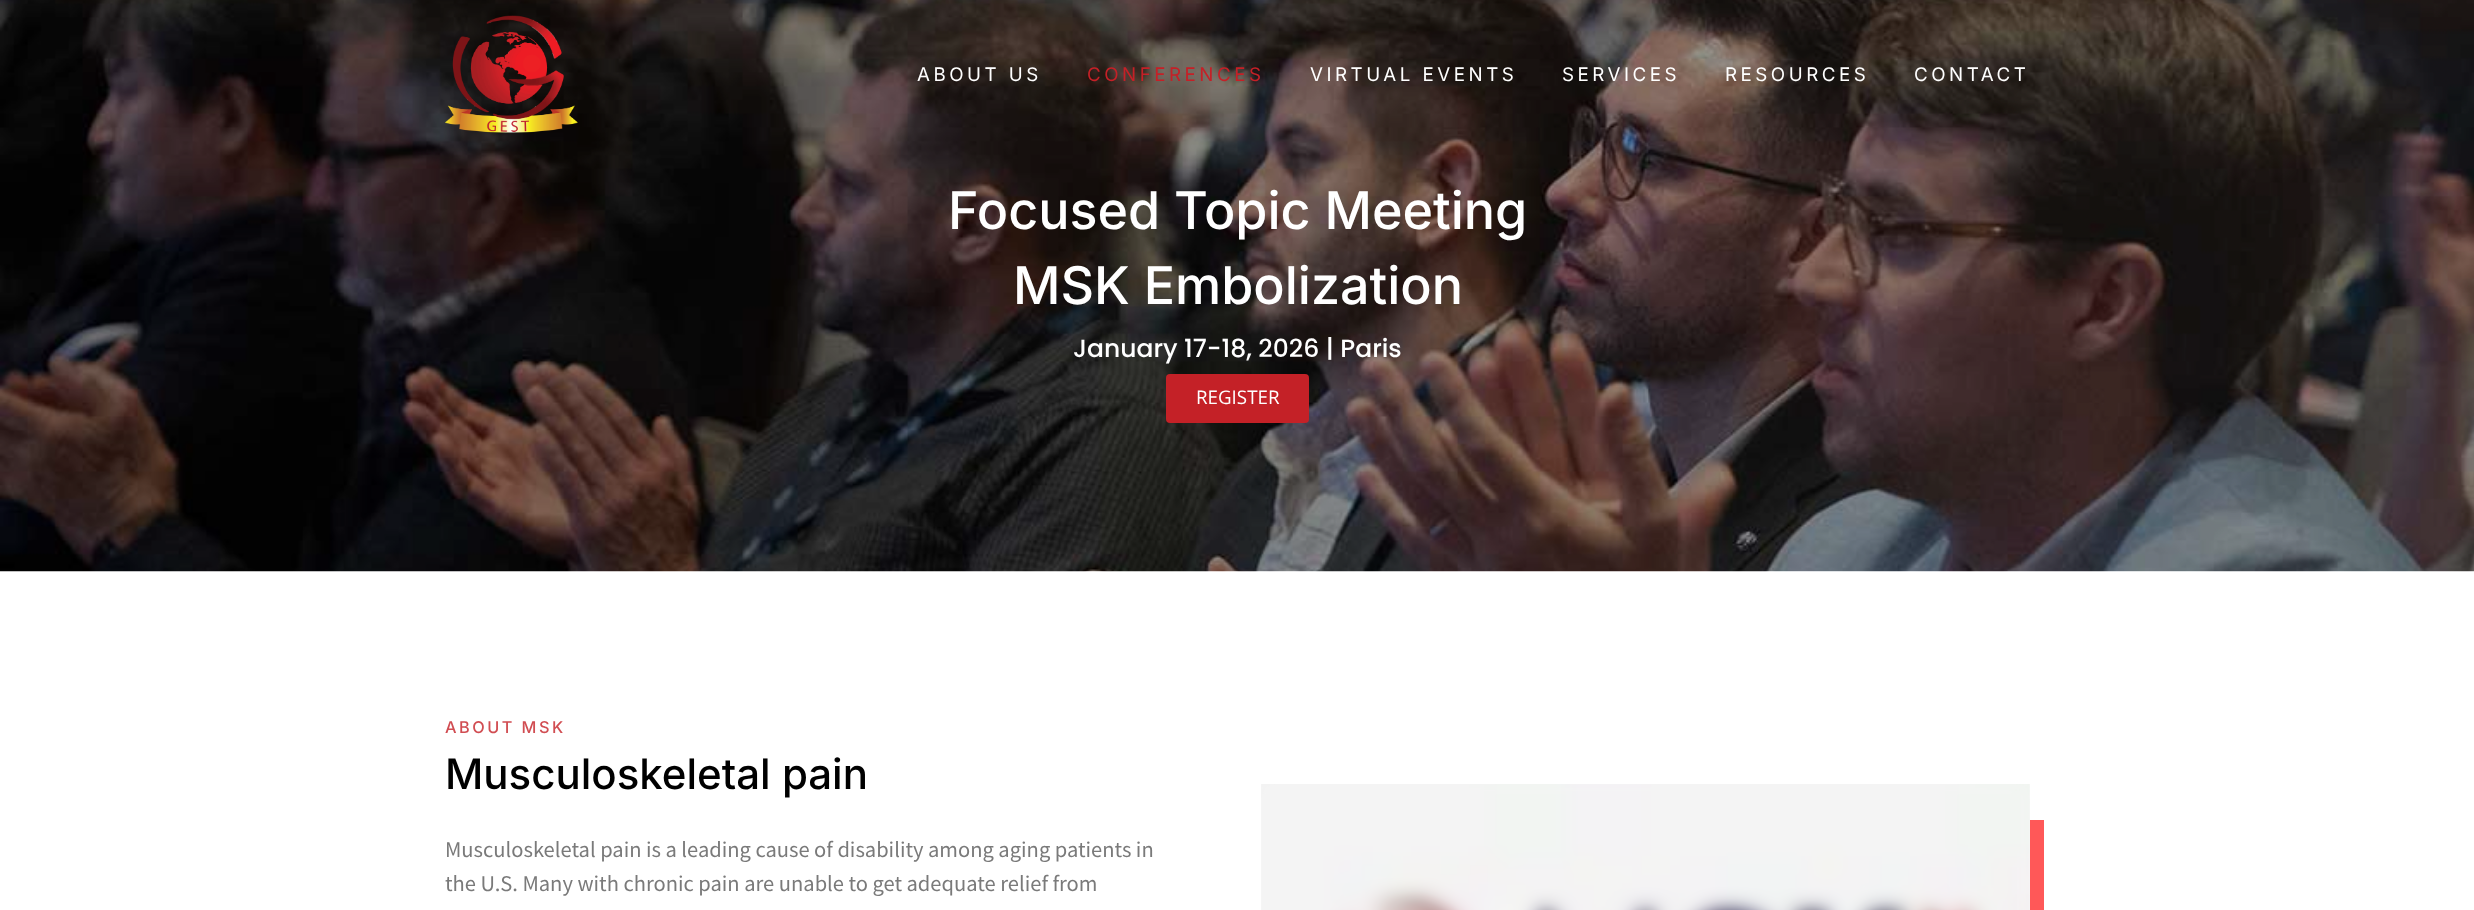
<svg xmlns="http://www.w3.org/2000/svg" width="2474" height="910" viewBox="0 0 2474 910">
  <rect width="100%" height="100%" fill="#fff"/>
  <image x="0" y="0" width="2474" height="572" href="img/2.png"/>
  <image x="445" y="15" width="133" height="118" href="img/1.png"/>
  <rect x="1166" y="374" width="143" height="49" rx="4" fill="#c42127"/>
  <path d="M1298 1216V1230H2044V820H2030V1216Z" fill="#ff5858"/>
  <image x="1261" y="784" width="769" height="126" href="img/3.png"/>
  <text x="917" y="81" font-family="Inter" font-size="18.75" letter-spacing="3.5" fill="#fff">ABOUT US</text>
  <text x="1087" y="81" font-family="Inter" font-size="18.75" letter-spacing="3.5" fill="#c52027">CONFERENCES</text>
  <g font-family="Inter" font-size="18.75" letter-spacing="3.5" fill="#fff">
    <text x="1310" y="81">VIRTUAL EVENTS</text>
    <text x="1562" y="81">SERVICES</text>
    <text x="1725" y="81">RESOURCES</text>
    <text x="1914" y="81">CONTACT</text>
  </g>
  <g font-family="Inter" font-size="52" font-weight="500" fill="#fff">
    <text x="948" y="229">Focused Topic Meeting</text>
    <text x="1013" y="304">MSK Embolization</text>
  </g>
  <text x="1073" y="357" font-family="Poppins" font-size="25" font-weight="500" fill="#fff">January 17-18, 2026 | Paris</text>
  <text x="1196" y="404" font-family="Open Sans" font-size="18.75" fill="#fff">REGISTER</text>
  <text x="445" y="733" font-family="Inter" font-size="16.25" font-weight="500" letter-spacing="2.5" fill="#d14d52">ABOUT MSK</text>
  <text x="445" y="789" font-family="Inter" font-size="42" font-weight="500" fill="#000">Musculoskeletal pain</text>
  <g font-family="Source Sans Pro" font-size="22.5" fill="#7a7a7a">
    <text x="445" y="857">Musculoskeletal pain is a leading cause of disability among aging patients in</text>
    <text x="445" y="891">the U.S. Many with chronic pain are unable to get adequate relief from</text>
  </g>
</svg>
